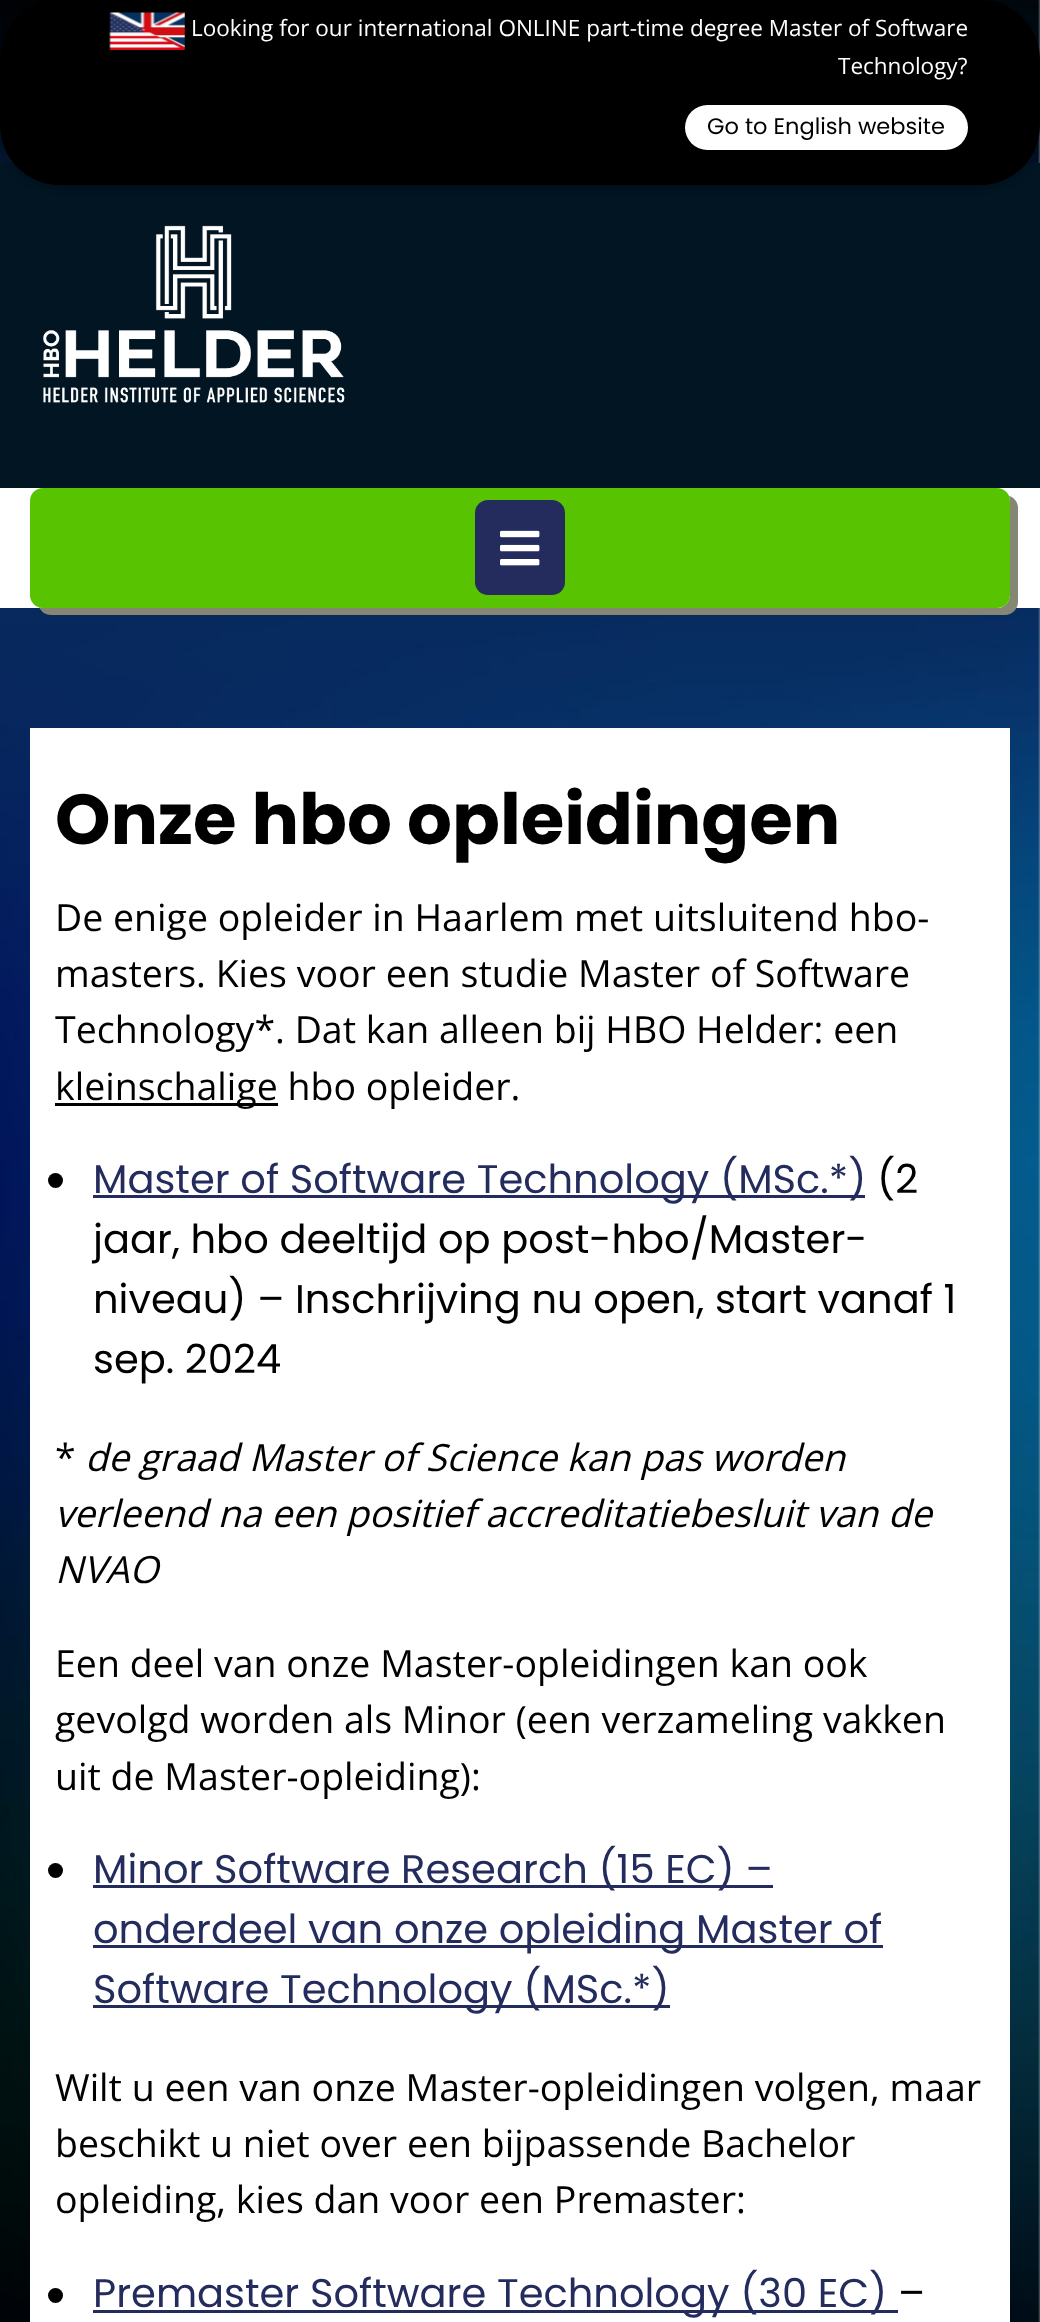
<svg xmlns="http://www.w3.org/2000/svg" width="1040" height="2322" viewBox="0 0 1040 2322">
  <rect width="100%" height="100%" fill="#fff"/>
  <image x="0" y="0" width="1040" height="2322" href="img/1.png"/>
  <path d="M0 163h1040v325H0z" fill="#021523"/>
  <rect x="5" y="10" width="1030" height="175" rx="55" fill="#00000080" filter="blur(5px)"/>
  <rect width="1040" height="185" rx="60" fill="#000"/>
  <image x="109" y="12" width="76" height="38" href="img/2.png"/>
  <rect x="685" y="105" width="283" height="45" rx="22.5" fill="#fff"/>
  <path d="M0 488h1040v120H0z" fill="#fff"/>
  <image x="43" y="225" width="302" height="178" href="img/3.png"/>
  <path d="M39 607C41 612 46 615 51 615H1005C1012 615 1018 609 1018 602V508C1018 502 1014 497 1009 496L1010 500V595C1010 602 1004 608 998 608H42Z" fill="#858673"/>
  <rect x="30" y="488" width="980" height="120" rx="13" fill="#58c300"/>
  <rect x="475" y="500" width="90" height="95" rx="13" fill="#242c5e"/>
  <image x="500" y="530" width="40" height="36" href="img/4.png"/>
  <path d="M30 728h980v1594H30z" fill="#fff"/>
  <path d="M55 1103h223v3H55z" fill="#000"/>
  <circle cx="55.5" cy="1180.5" r="7.5" fill="#000"/>
  <path d="M93 1195h772v3H93z" fill="#242c5e"/>
  <circle cx="55.5" cy="1870.5" r="7.5" fill="#000"/>
  <path d="M93 1885h680v3H93z" fill="#242c5e"/>
  <path d="M93 1945h790v3H93z" fill="#242c5e"/>
  <path d="M93 2005h577v3H93z" fill="#242c5e"/>
  <circle cx="55.5" cy="2295.5" r="7.5" fill="#000"/>
  <path d="M93 2310h805v3H93z" fill="#242c5e"/>
  <g font-family="Open Sans" font-size="22.5" fill="#fff">
    <text x="191" y="36">Looking for our international ONLINE part-time degree Master of Software</text>
    <text x="838" y="74">Technology?</text>
  </g>
  <text x="707" y="134" font-family="Poppins" font-size="22.5" fill="#000">Go to English website</text>
  <text x="55" y="844" font-family="Poppins" font-size="70.6" font-weight="bold" fill="#000">Onze hbo opleidingen</text>
  <g font-family="Open Sans" font-size="37.5" fill="#000">
    <text x="55" y="931">De enige opleider in Haarlem met uitsluitend hbo-</text>
    <text x="55" y="987">masters. Kies voor een studie Master of Software</text>
    <text x="55" y="1043">Technology*. Dat kan alleen bij HBO Helder: een</text>
    <text x="55" y="1100">kleinschalige hbo opleider.</text>
  </g>
  <text x="93" y="1193" font-family="Poppins" font-size="40" fill="#242c5e">Master of Software Technology (MSc.*)</text>
  <g font-family="Poppins" font-size="40" fill="#000">
    <text x="877" y="1193">(2</text>
    <text x="93" y="1253">jaar, hbo deeltijd op post-hbo/Master-</text>
    <text x="93" y="1313">niveau) – Inschrijving nu open, start vanaf 1</text>
    <text x="93" y="1373">sep. 2024</text>
  </g>
  <text x="55" y="1471" font-family="Open Sans" font-size="37.5" fill="#000">*</text>
  <g font-family="Open Sans" font-size="37.5" font-style="italic" fill="#000">
    <text x="85" y="1471">de graad Master of Science kan pas worden</text>
    <text x="55" y="1527">verleend na een positief accreditatiebesluit van de</text>
    <text x="55" y="1583">NVAO</text>
  </g>
  <g font-family="Open Sans" font-size="37.5" fill="#000">
    <text x="55" y="1677">Een deel van onze Master-opleidingen kan ook</text>
    <text x="55" y="1733">gevolgd worden als Minor (een verzameling vakken</text>
    <text x="55" y="1790">uit de Master-opleiding):</text>
  </g>
  <g font-family="Poppins" font-size="40" fill="#242c5e">
    <text x="93" y="1883">Minor Software Research (15 EC) –</text>
    <text x="93" y="1943">onderdeel van onze opleiding Master of</text>
    <text x="93" y="2003">Software Technology (MSc.*)</text>
  </g>
  <g font-family="Open Sans" font-size="37.5" fill="#000">
    <text x="55" y="2101">Wilt u een van onze Master-opleidingen volgen, maar</text>
    <text x="55" y="2157">beschikt u niet over een bijpassende Bachelor</text>
    <text x="55" y="2213">opleiding, kies dan voor een Premaster:</text>
  </g>
  <text x="93" y="2307" font-family="Poppins" font-size="40" fill="#242c5e">Premaster Software Technology (30 EC)</text>
  <text x="898" y="2307" font-family="Poppins" font-size="40" fill="#000">–</text>
</svg>
